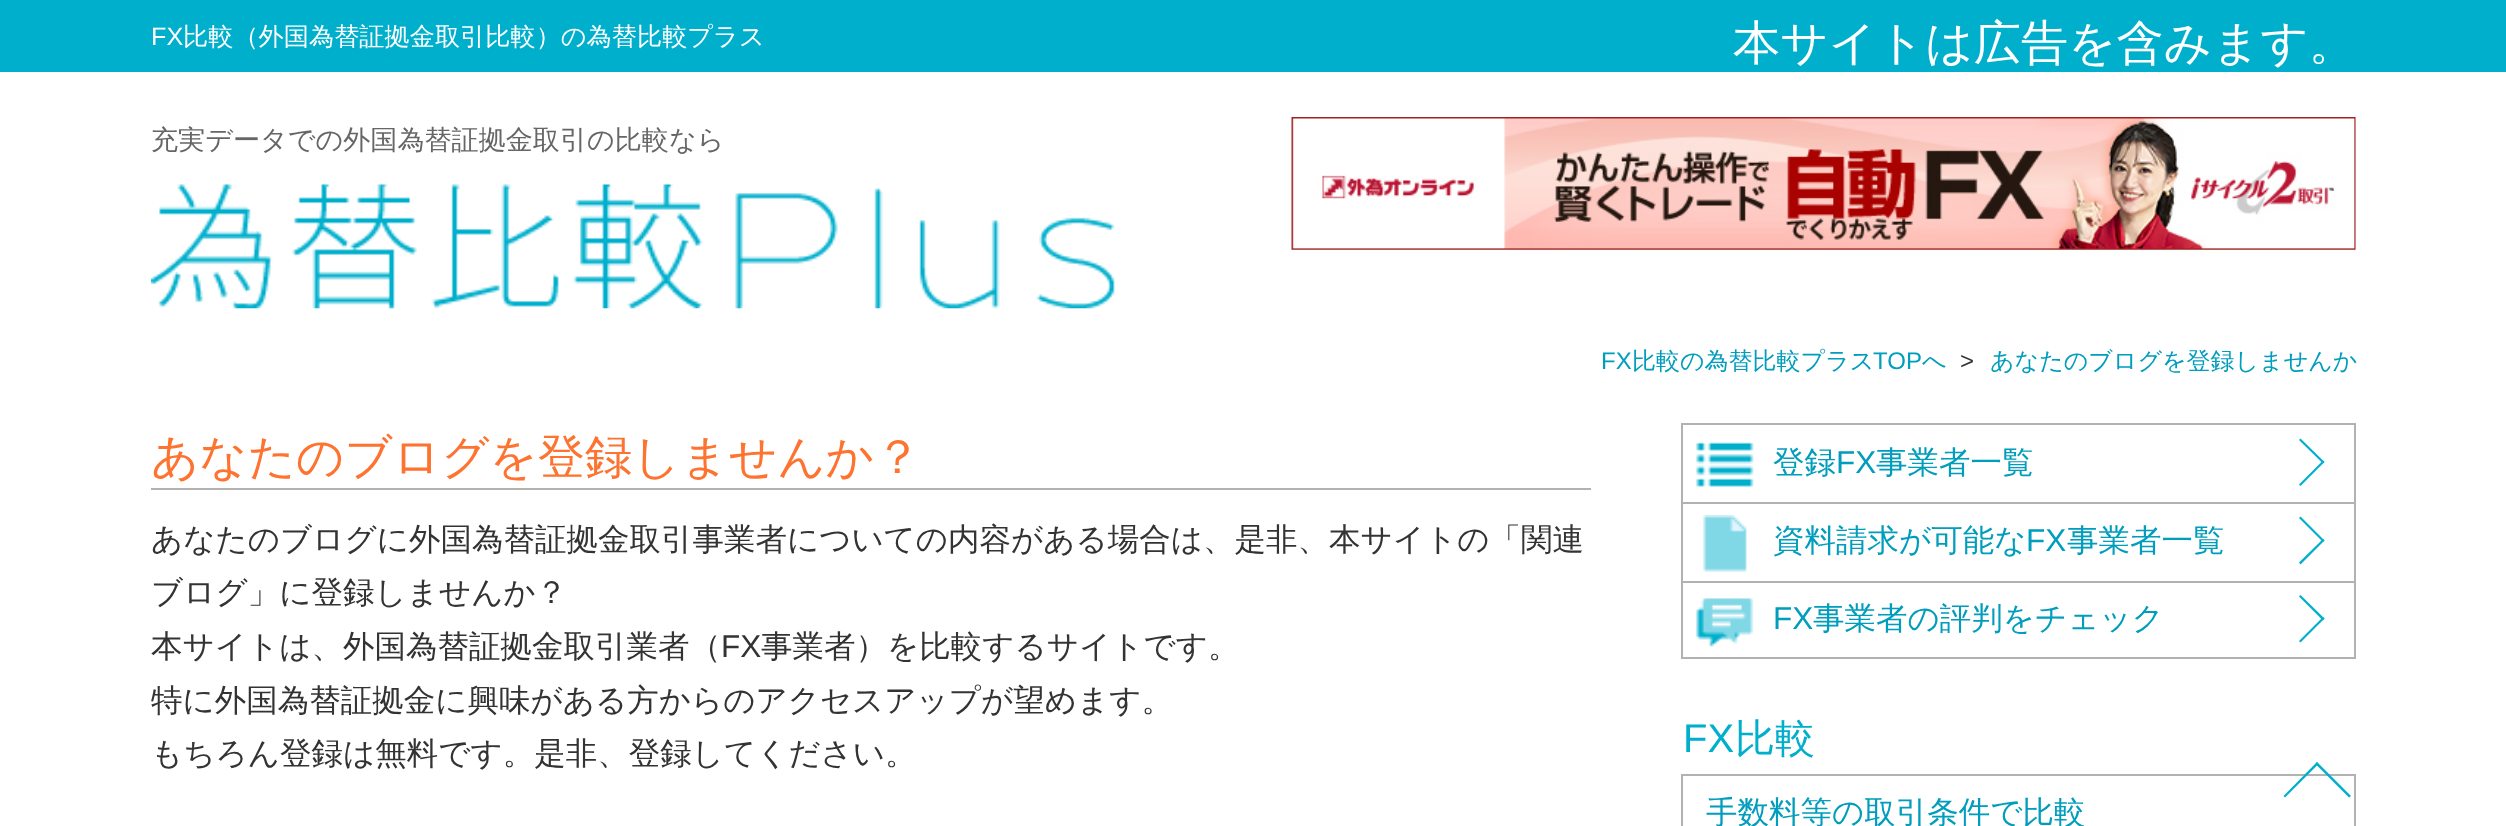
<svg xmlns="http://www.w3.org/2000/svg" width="2506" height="826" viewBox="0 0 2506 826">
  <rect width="100%" height="100%" fill="#fff"/>
  <path d="M0 0h2506v72H0z" fill="#00afcc"/>
  <image x="1291" y="117" width="1065" height="133" href="img/1.png"/>
  <image x="150" y="184" width="965" height="125" href="img/2.png"/>
  <path d="M151 488h1440v2H151z" fill="#b2b2b2"/>
  <path d="M2354 423h2v236H2354z" fill="#b2b2b2"/>
  <path d="M1681 657h675v2H1681z" fill="#b2b2b2"/>
  <path d="M1681 423h2v236H1681z" fill="#b2b2b2"/>
  <path d="M1683 423h671v2H1683z" fill="#b2b2b2"/>
  <image x="1696" y="442" width="58" height="45" href="img/3.png"/>
  <path d="M2300.5 438.5L2324.5 462L2323 463.5L2299 440Z" fill="#00afcc"/>
  <path d="M2323 460.5L2324.5 462L2300.5 486L2299 484.5Z" fill="#00afcc"/>
  <path d="M1683 502h671v2H1683z" fill="#b2b2b2"/>
  <image x="1702" y="515" width="45" height="57" href="img/4.png"/>
  <path d="M2300.5 516.5L2324.5 540.5L2323 542L2299 518Z" fill="#00afcc"/>
  <path d="M2323 539L2324.5 540.5L2300.5 564.5L2299 562.5Z" fill="#00afcc"/>
  <path d="M1683 581h671v2H1683z" fill="#b2b2b2"/>
  <image x="1696" y="598" width="58" height="49" href="img/5.png"/>
  <path d="M2300.5 595L2324.5 618.5L2323 620.5L2299 596.5Z" fill="#00afcc"/>
  <path d="M2323 617L2324.5 618.5L2300.5 642.5L2299 641Z" fill="#00afcc"/>
  <path d="M2354 774h2v52H2354z" fill="#b2b2b2"/>
  <path d="M1681 774h2v52H1681z" fill="#b2b2b2"/>
  <path d="M1683 774h671v2H1683z" fill="#b2b2b2"/>
  <path d="M2283.5 796L2317 762L2318.5 764L2285 797.5Z" fill="#00afcc"/>
  <path d="M2315.5 764L2317 762L2351 796L2349 797.5Z" fill="#00afcc"/>
  <text x="151" y="45" font-family="Liberation Sans" font-size="25.2" fill="#fff">FX</text>
  <text x="183" y="45" font-family="WenQuanYi Zen Hei" font-size="25.2" font-weight="500" fill="#fff">比較（外国為替証拠金取引比較）の為替比較プラス</text>
  <text x="1733" y="59" font-family="WenQuanYi Zen Hei" font-size="47.25" font-weight="500" fill="#fff">本サイトは広告を含みます。</text>
  <text x="151" y="149" font-family="WenQuanYi Zen Hei" font-size="27.1" font-weight="500" fill="#666">充実データでの外国為替証拠金取引の比較なら</text>
  <text x="1601" y="369" font-family="Liberation Sans" font-size="24" fill="#009dbc">FX</text>
  <text x="1632" y="369" font-family="WenQuanYi Zen Hei" font-size="24" font-weight="500" fill="#009dbc">比較の為替比較プラス</text>
  <text x="1873" y="369" font-family="Liberation Sans" font-size="24" fill="#009dbc">TOP</text>
  <text x="1922" y="369" font-family="WenQuanYi Zen Hei" font-size="24" font-weight="500" fill="#009dbc">へ</text>
  <text x="1960" y="369" font-family="Liberation Sans" font-size="24" fill="#333">&gt;</text>
  <text x="1990" y="369" font-family="WenQuanYi Zen Hei" font-size="24" font-weight="500" fill="#009dbc">あなたのブログを登録しませんか</text>
  <text x="151" y="473" font-family="WenQuanYi Zen Hei" font-size="47.25" font-weight="500" fill="#fd732f">あなたのブログを登録しませんか？</text>
  <g font-family="WenQuanYi Zen Hei" font-size="31.5" font-weight="500" fill="#333">
    <text x="151" y="550">あなたのブログに外国為替証拠金取引事業者についての内容がある場合は、是非、本サイトの「関連</text>
    <text x="151" y="603">ブログ」に登録しませんか？</text>
    <text x="151" y="657">本サイトは、外国為替証拠金取引業者（</text>
  </g>
  <text x="721" y="657" font-family="Liberation Sans" font-size="31.5" fill="#333">FX</text>
  <g font-family="WenQuanYi Zen Hei" font-size="31.5" font-weight="500" fill="#333">
    <text x="761" y="657">事業者）を比較するサイトです。</text>
    <text x="151" y="711">特に外国為替証拠金に興味がある方からのアクセスアップが望めます。</text>
    <text x="151" y="764">もちろん登録は無料です。是非、登録してください。</text>
  </g>
  <text x="1773" y="473" font-family="WenQuanYi Zen Hei" font-size="31.5" font-weight="500" fill="#009dbc">登録</text>
  <text x="1836" y="473" font-family="Liberation Sans" font-size="31.5" fill="#009dbc">FX</text>
  <g font-family="WenQuanYi Zen Hei" font-size="31.5" font-weight="500" fill="#009dbc">
    <text x="1876" y="473">事業者一覧</text>
    <text x="1773" y="551">資料請求が可能な</text>
  </g>
  <text x="2026" y="551" font-family="Liberation Sans" font-size="31.5" fill="#009dbc">FX</text>
  <text x="2067" y="551" font-family="WenQuanYi Zen Hei" font-size="31.5" font-weight="500" fill="#009dbc">事業者一覧</text>
  <text x="1773" y="629" font-family="Liberation Sans" font-size="31.5" fill="#009dbc">FX</text>
  <text x="1813" y="629" font-family="WenQuanYi Zen Hei" font-size="31.5" font-weight="500" fill="#009dbc">事業者の評判をチェック</text>
  <text x="1683" y="752" font-family="Liberation Sans" font-size="40" fill="#00afcc">FX</text>
  <text x="1735" y="752" font-family="WenQuanYi Zen Hei" font-size="40" font-weight="500" fill="#00afcc">比較</text>
  <text x="1706" y="823" font-family="WenQuanYi Zen Hei" font-size="31.5" font-weight="500" fill="#009dbc">手数料等の取引条件で比較</text>
</svg>
